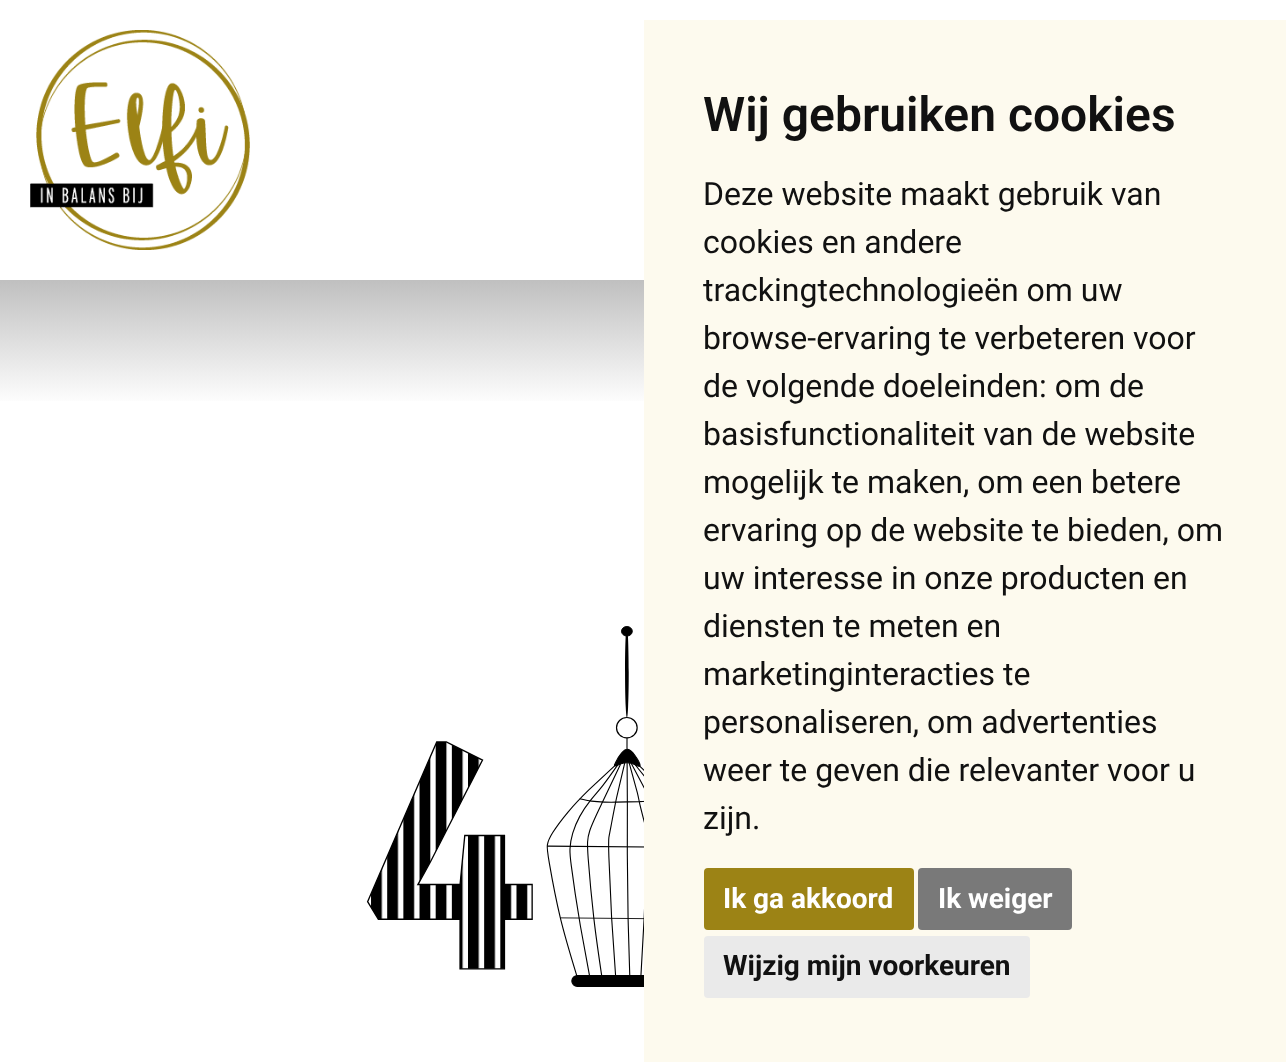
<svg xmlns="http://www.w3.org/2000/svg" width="1286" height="1062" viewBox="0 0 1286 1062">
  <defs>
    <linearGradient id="g1" gradientUnits="userSpaceOnUse" x1="643" y1="0" x2="643" y2="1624"><stop offset="0" stop-color="#333"/><stop offset="0.25" stop-color="#fff"/></linearGradient>
  </defs>
  <rect width="100%" height="100%" fill="#fff"/>
  <image x="30" y="30" width="220" height="220" href="img/1.png"/>
  <path d="M0 280h644v121H0z" fill="url(#g1)"/>
  <image x="366" y="626" width="278" height="361" href="img/2.png"/>
  <path d="M644 20h642v1042H644z" fill="#fdfaee"/>
  <rect x="704" y="868" width="210" height="62" rx="4" fill="#9c8315"/>
  <rect x="918" y="868" width="154" height="62" rx="4" fill="#797979"/>
  <rect x="704" y="936" width="326" height="62" rx="4" fill="#eaeaea"/>
  <text x="703" y="131" font-family="Roboto" font-size="48" font-weight="600" fill="#111">Wij gebruiken cookies</text>
  <g font-family="Roboto" font-size="32" fill="#111">
    <text x="703" y="205">Deze website maakt gebruik van</text>
    <text x="703" y="253">cookies en andere</text>
    <text x="703" y="301">trackingtechnologieën om uw</text>
    <text x="703" y="349">browse-ervaring te verbeteren voor</text>
    <text x="703" y="397">de volgende doeleinden: om de</text>
    <text x="703" y="445">basisfunctionaliteit van de website</text>
    <text x="703" y="493">mogelijk te maken, om een betere</text>
    <text x="703" y="541">ervaring op de website te bieden, om</text>
    <text x="703" y="589">uw interesse in onze producten en</text>
    <text x="703" y="637">diensten te meten en</text>
    <text x="703" y="685">marketinginteracties te</text>
    <text x="703" y="733">personaliseren, om advertenties</text>
    <text x="703" y="781">weer te geven die relevanter voor u</text>
    <text x="703" y="829">zijn.</text>
  </g>
  <g font-family="Roboto" font-size="28" font-weight="bold" fill="#fff">
    <text x="723" y="908">Ik ga akkoord</text>
    <text x="938" y="908">Ik weiger</text>
  </g>
  <text x="723" y="975" font-family="Roboto" font-size="28" font-weight="bold" fill="#111">Wijzig mijn voorkeuren</text>
</svg>
